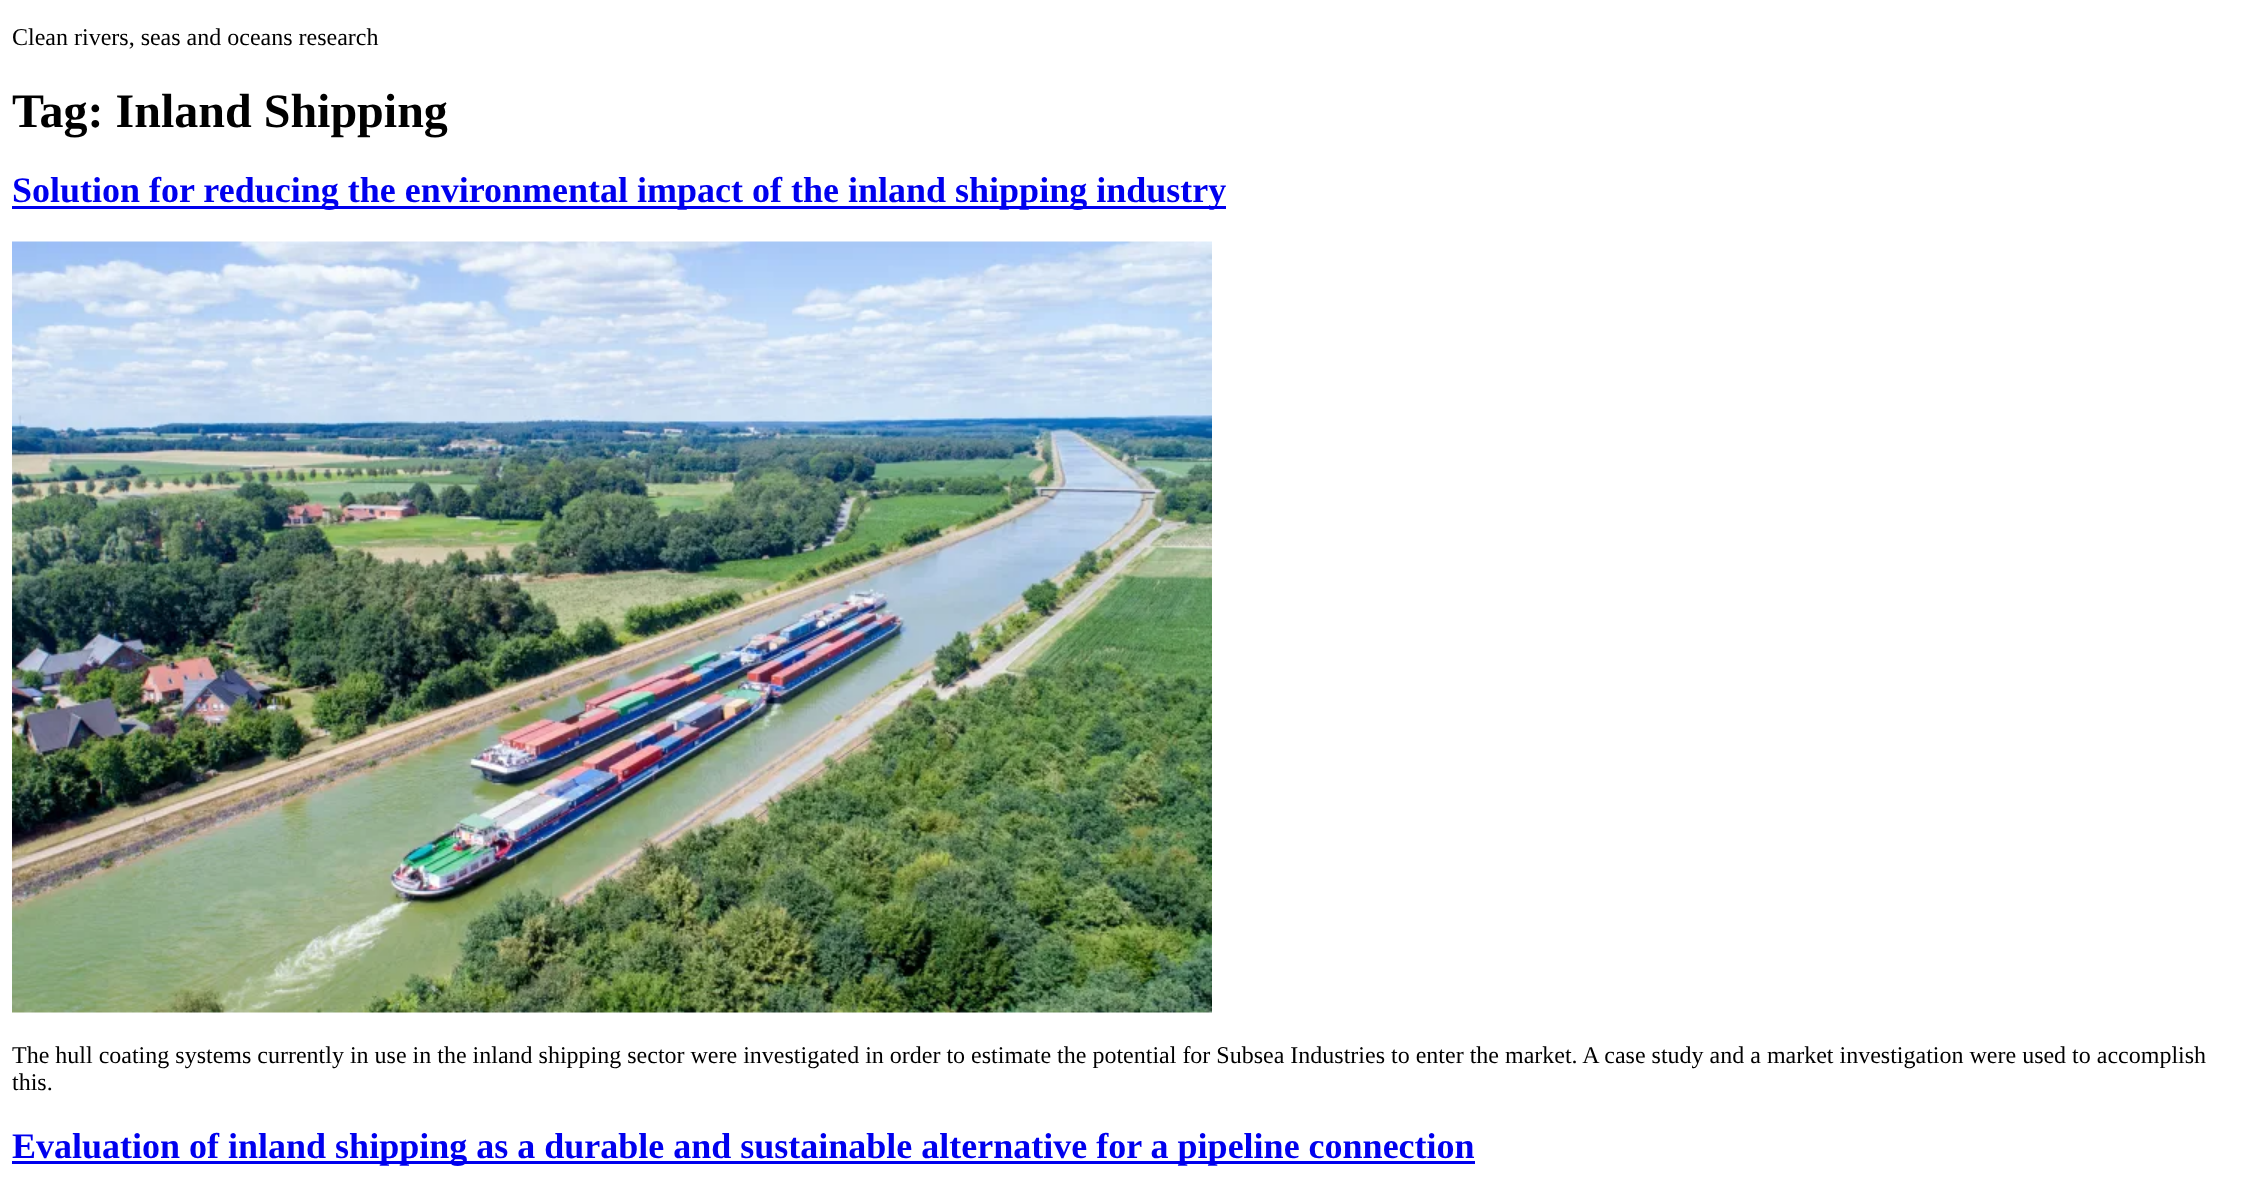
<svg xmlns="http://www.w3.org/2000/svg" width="2256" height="1177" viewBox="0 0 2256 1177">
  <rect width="100%" height="100%" fill="#fff"/>
  <path d="M12 206h1214v3H12z" fill="#00e"/>
  <image x="12" y="241" width="1200" height="772" href="img/1.png"/>
  <path d="M12 1161h1463v3H12z" fill="#00e"/>
  <text x="12" y="45" font-family="Liberation Serif" font-size="24" fill="#000">Clean rivers, seas and oceans research</text>
  <text x="12" y="127" font-family="Liberation Serif" font-size="48" font-weight="bold" fill="#000">Tag: Inland Shipping</text>
  <text x="12" y="202" font-family="Liberation Serif" font-size="36" font-weight="bold" fill="#00e">Solution for reducing the environmental impact of the inland shipping industry</text>
  <g font-family="Liberation Serif" font-size="24" fill="#000">
    <text x="12" y="1063">The hull coating systems currently in use in the inland shipping sector were investigated in order to estimate the potential for Subsea Industries to enter the market. A case study and a market investigation were used to accomplish</text>
    <text x="12" y="1090">this.</text>
  </g>
  <text x="12" y="1158" font-family="Liberation Serif" font-size="36" font-weight="bold" fill="#00e">Evaluation of inland shipping as a durable and sustainable alternative for a pipeline connection</text>
</svg>
